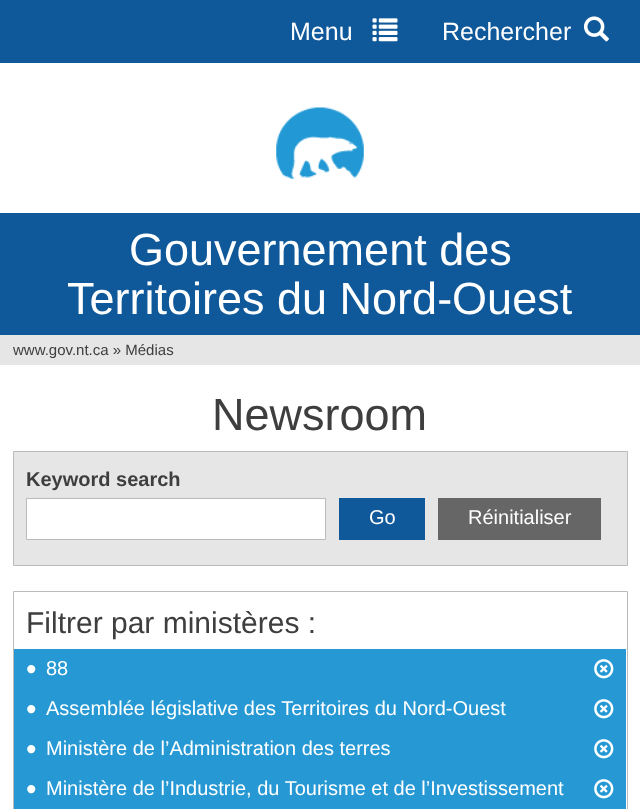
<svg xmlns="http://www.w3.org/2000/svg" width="640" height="809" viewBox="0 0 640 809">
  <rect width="100%" height="100%" fill="#fff"/>
  <path d="M0 0h640v63H0z" fill="#0f599a"/>
  <image x="372" y="18" width="26" height="24" href="img/1.png"/>
  <image x="583" y="16" width="26" height="26" href="img/2.png"/>
  <image x="276" y="107" width="88" height="72" href="img/3.png"/>
  <path d="M0 213h640v122H0z" fill="#0f599a"/>
  <path d="M0 335h640v30H0z" fill="#e6e6e6"/>
  <path d="M13.5 451.5h614v114H13.5z" fill="#e6e6e6" stroke="#bbb"/>
  <path d="M26.5 498.5h299v41H26.5z" fill="#fff" stroke="#bbb"/>
  <path d="M339 498h86v42H339z" fill="#0f599a"/>
  <path d="M438 498h163v42H438z" fill="#666"/>
  <path d="M13.5 591.5h614v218H13.5z" fill="none" stroke="#bbb"/>
  <path d="M14 649h612v160H14z" fill="#2699d5"/>
  <image x="594" y="659" width="20" height="20" href="img/4.png"/>
  <image x="594" y="699" width="20" height="20" href="img/4.png"/>
  <image x="594" y="739" width="20" height="20" href="img/4.png"/>
  <image x="594" y="779" width="20" height="20" href="img/4.png"/>
  <g font-family="Liberation Sans" font-size="25" fill="#fff">
    <text x="290" y="40">Menu</text>
    <text x="442" y="40">Rechercher</text>
  </g>
  <g font-family="Liberation Sans" font-size="45" fill="#fff">
    <text x="129" y="265">Gouvernement des</text>
    <text x="67" y="314">Territoires du Nord-Ouest</text>
  </g>
  <text x="13" y="355" font-family="Liberation Sans" font-size="15" fill="#3e3e3e">www.gov.nt.ca » Médias</text>
  <text x="212" y="430" font-family="Liberation Sans" font-size="45" fill="#3e3e3e">Newsroom</text>
  <text x="26" y="486" font-family="Liberation Sans" font-size="20" font-weight="bold" fill="#3e3e3e">Keyword search</text>
  <g font-family="Liberation Sans" font-size="20" fill="#fff">
    <text x="369" y="524">Go</text>
    <text x="468" y="524">Réinitialiser</text>
  </g>
  <text x="26" y="633" font-family="Liberation Sans" font-size="30" fill="#3e3e3e">Filtrer par ministères :</text>
  <text x="26" y="679" font-family="Liberation Sans" font-size="30" fill="#fff">•</text>
  <text x="46" y="675" font-family="Liberation Sans" font-size="20" fill="#fff">88</text>
  <text x="26" y="719" font-family="Liberation Sans" font-size="30" fill="#fff">•</text>
  <text x="46" y="715" font-family="Liberation Sans" font-size="20" fill="#fff">Assemblée législative des Territoires du Nord-Ouest</text>
  <text x="26" y="759" font-family="Liberation Sans" font-size="30" fill="#fff">•</text>
  <text x="46" y="755" font-family="Liberation Sans" font-size="20" fill="#fff">Ministère de l’Administration des terres</text>
  <text x="26" y="799" font-family="Liberation Sans" font-size="30" fill="#fff">•</text>
  <text x="46" y="795" font-family="Liberation Sans" font-size="20" fill="#fff">Ministère de l’Industrie, du Tourisme et de l’Investissement</text>
</svg>
